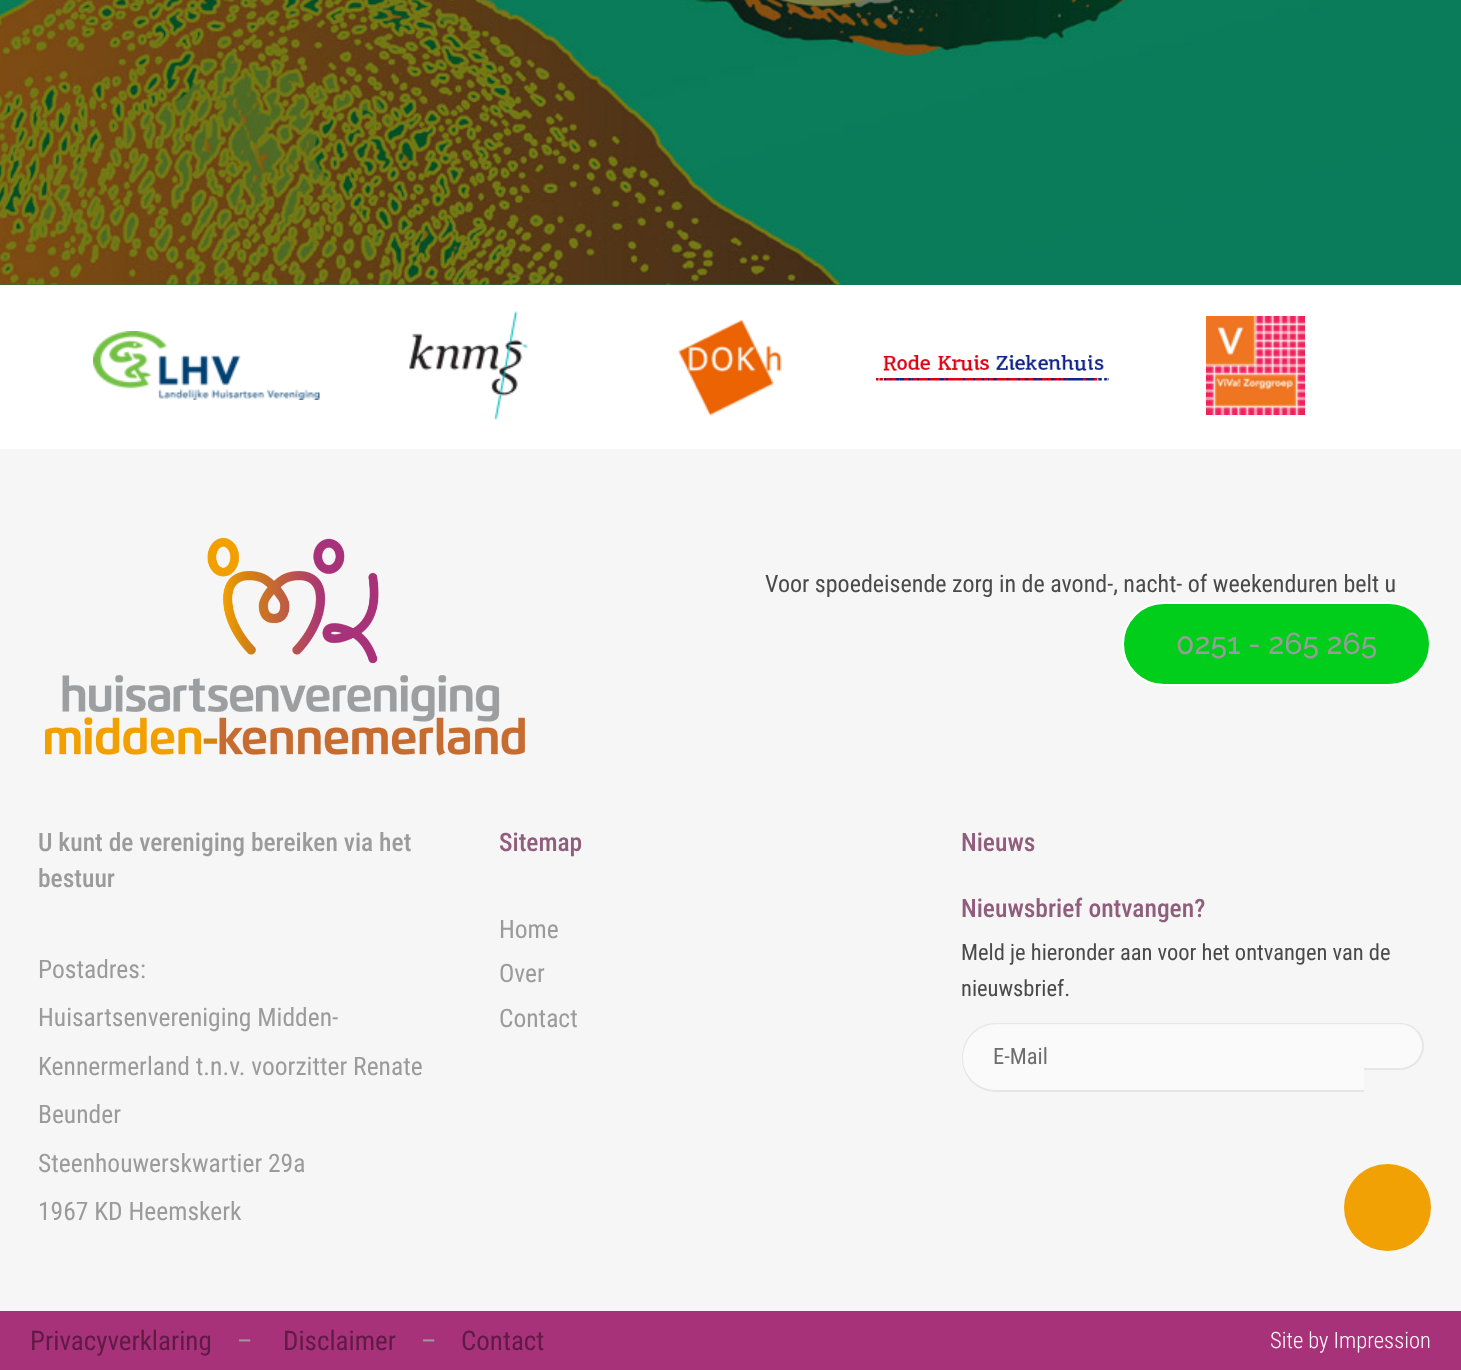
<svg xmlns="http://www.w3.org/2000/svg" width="1461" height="1370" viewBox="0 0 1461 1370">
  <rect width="100%" height="100%" fill="#fff"/>
  <path d="M0 284h1461v1H0z" fill="#0a7d56"/>
  <image x="0" y="0" width="1461" height="285" href="img/1.png"/>
  <image x="93" y="331" width="227" height="69" href="img/2.png"/>
  <image x="409" y="311" width="119" height="109" href="img/3.png"/>
  <image x="677" y="319" width="105" height="97" href="img/4.png"/>
  <image x="876" y="355" width="233" height="26" href="img/5.png"/>
  <image x="1206" y="316" width="99" height="99" href="img/6.png"/>
  <path d="M0 449h1461v862H0z" fill="#f6f6f6"/>
  <image x="45" y="538" width="480" height="218" href="img/7.png"/>
  <rect x="1123" y="603" width="307" height="82" rx="41" fill="#00ce1b" stroke="#fff" stroke-width="2"/>
  <path d="M996 1025H1364V1091H996C978 1091 963 1076 963 1058C963 1040 978 1025 996 1025Z" fill="#fafafa"/>
  <path d="M996 1023H1364V1092H996C977 1092 962 1077 962 1058C962 1038 977 1023 996 1023ZM996 1024H1364V1090H996C978 1090 963 1076 963 1058C963 1039 978 1024 996 1024Z" fill="#e6e6e6" fill-rule="evenodd"/>
  <path d="M1364 1025H1400.5C1412.5 1025 1422 1034.5 1422 1046.5C1422 1058.5 1412.5 1068 1400.5 1068H1364Z" fill="#fafafa"/>
  <path d="M1364 1023H1400C1413 1023 1424 1033 1424 1046C1424 1059 1413 1070 1400 1070H1364ZM1364 1024H1400C1412 1024 1422 1034 1422 1046C1422 1058 1412 1068 1400 1068H1364Z" fill="#e6e6e6" fill-rule="evenodd"/>
  <path d="M0 1311h1461v59H0z" fill="#a83279"/>
  <circle cx="1387.5" cy="1207.5" r="43.5" fill="#f2a104"/>
  <text x="765" y="592" font-family="Roboto Condensed" font-size="24" fill="#4a4a4a">Voor spoedeisende zorg in de avond-, nacht- of weekenduren belt u</text>
  <text x="1176" y="654" font-family="Raleway" font-size="30" font-weight="500" fill="#9b9b9b">0251 - 265 265</text>
  <g font-family="Roboto Condensed" font-size="25.5" font-weight="500" fill="#9b9b9b">
    <text x="38" y="851">U kunt de vereniging bereiken via het</text>
    <text x="38" y="887">bestuur</text>
  </g>
  <g font-family="Roboto Condensed" font-size="25.5" fill="#9b9b9b">
    <text x="38" y="978">Postadres:</text>
    <text x="38" y="1026">Huisartsenvereniging Midden-</text>
    <text x="38" y="1075">Kennermerland t.n.v. voorzitter Renate</text>
    <text x="38" y="1123">Beunder</text>
    <text x="38" y="1172">Steenhouwerskwartier 29a</text>
    <text x="38" y="1220">1967 KD Heemskerk</text>
  </g>
  <text x="499" y="851" font-family="Roboto Condensed" font-size="25.5" font-weight="500" fill="#905d7c">Sitemap</text>
  <g font-family="Roboto Condensed" font-size="25.5" fill="#9b9b9b">
    <text x="499" y="938">Home</text>
    <text x="499" y="982">Over</text>
    <text x="499" y="1027">Contact</text>
  </g>
  <g font-family="Roboto Condensed" font-size="25.5" font-weight="500" fill="#905d7c">
    <text x="961" y="851">Nieuws</text>
    <text x="961" y="917">Nieuwsbrief ontvangen?</text>
  </g>
  <g font-family="Roboto Condensed" font-size="22.5" fill="#4a4a4a">
    <text x="961" y="960">Meld je hieronder aan voor het ontvangen van de</text>
    <text x="961" y="996">nieuwsbrief.</text>
  </g>
  <text x="993" y="1064" font-family="Roboto Condensed" font-size="22.5" fill="#6d6d6d">E-Mail</text>
  <text x="30" y="1350" font-family="Roboto Condensed" font-size="27" fill="#601b45">Privacyverklaring</text>
  <text x="237" y="1350" font-family="Roboto Condensed" font-size="27" fill="#9b9b9b">–</text>
  <text x="283" y="1350" font-family="Roboto Condensed" font-size="27" fill="#601b45">Disclaimer</text>
  <text x="421" y="1350" font-family="Roboto Condensed" font-size="27" fill="#9b9b9b">–</text>
  <text x="461" y="1350" font-family="Roboto Condensed" font-size="27" fill="#601b45">Contact</text>
  <text x="1270" y="1348" font-family="Roboto Condensed" font-size="22.5" font-weight="300" fill="#fff">Site by Impression</text>
</svg>
